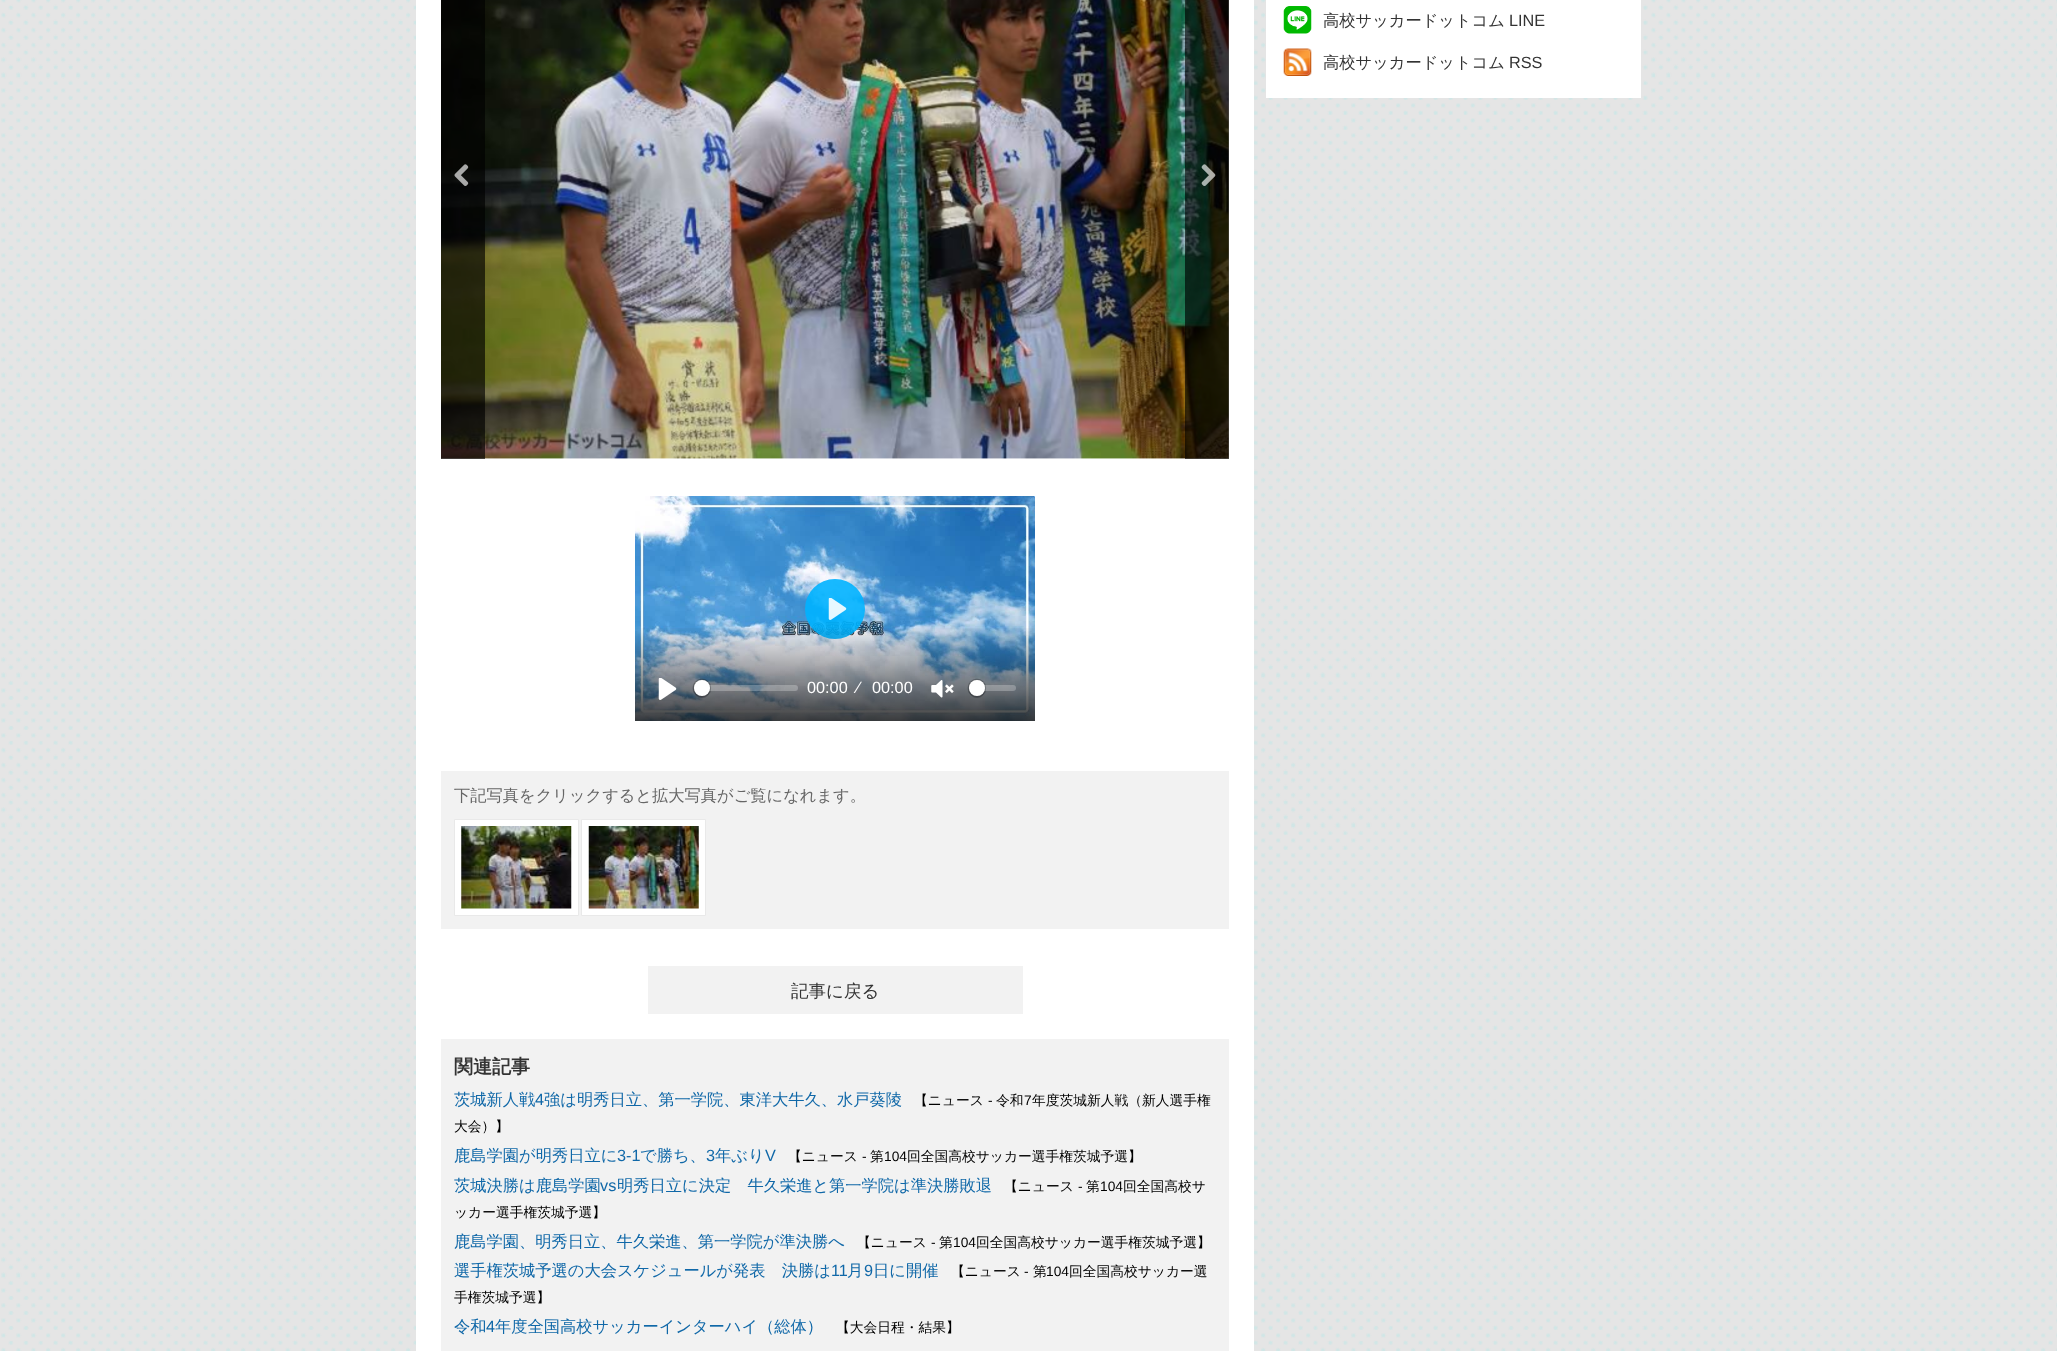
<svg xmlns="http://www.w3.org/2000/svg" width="2057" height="1351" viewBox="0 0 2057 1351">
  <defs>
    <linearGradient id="g1" gradientUnits="userSpaceOnUse" x1="835" y1="625" x2="835" y2="721"><stop offset="0" stop-color="#000" stop-opacity="0"/><stop offset="1" stop-color="#000" stop-opacity="0.75"/></linearGradient>
  </defs>
  <rect width="100%" height="100%" fill="#e5e5e5"/>
  <image x="1" y="0" width="2056" height="1351" href="img/1.png"/>
  <path d="M1266 0h375v98H1266z" fill="#fff"/>
  <image x="1283" y="6" width="29" height="28" href="img/2.png"/>
  <image x="1283" y="48" width="29" height="28" href="img/3.png"/>
  <path d="M416 0h838v1351H416z" fill="#fff"/>
  <image x="441" y="458" width="1" height="1" href="img/5.png"/>
  <image x="441" y="0" width="788" height="459" href="img/4.png"/>
  <path d="M441 0h44v459H441z" fill="#000000a6"/>
  <image x="454" y="164" width="15" height="22" href="img/6.png"/>
  <path d="M1185 0h44v459H1185z" fill="#000000a6"/>
  <image x="1201" y="164" width="15" height="22" href="img/7.png"/>
  <image x="635" y="496" width="400" height="225" href="img/8.png"/>
  <circle cx="835" cy="609" r="30" fill="#00b2ffe6"/>
  <image x="828" y="598" width="19" height="22" href="img/9.png"/>
  <path d="M635 628h400v93H635z" fill="url(#g1)"/>
  <image x="658" y="678" width="19" height="22" href="img/10.png"/>
  <rect x="694" y="685" width="104" height="6" rx="3" fill="#ffffff40"/>
  <rect x="693.5" y="679.5" width="17" height="18" rx="8.5" fill="none" stroke="#23282f33"/>
  <rect x="694" y="681" width="16" height="17" rx="8" fill="#23282f26" filter="blur(0.5px)"/>
  <circle cx="702" cy="688" r="8" fill="#fff"/>
  <image x="931" y="680" width="23" height="18" href="img/11.png"/>
  <rect x="969" y="685" width="47" height="6" rx="3" fill="#ffffff40"/>
  <rect x="968.5" y="679.5" width="17" height="18" rx="8.5" fill="none" stroke="#23282f33"/>
  <rect x="969" y="681" width="16" height="17" rx="8" fill="#23282f26" filter="blur(0.5px)"/>
  <circle cx="977" cy="688" r="8" fill="#fff"/>
  <path d="M441 771h788v158H441z" fill="#f2f2f2"/>
  <path d="M454.5 819.5h124v96H454.5z" fill="#fff" stroke="#e9e9e9"/>
  <image x="461" y="826" width="111" height="83" href="img/12.png"/>
  <path d="M581.5 819.5h124v96H581.5z" fill="#fff" stroke="#e9e9e9"/>
  <image x="588" y="826" width="111" height="83" href="img/13.png"/>
  <path d="M648 966h375v48H648z" fill="#f2f2f2"/>
  <path d="M441 1039h788v312H441z" fill="#f2f2f2"/>
  <text x="1323" y="26" font-family="WenQuanYi Zen Hei" font-size="16.25" font-weight="500" fill="#333">高校サッカードットコム</text>
  <text x="1509" y="26" font-family="Liberation Sans" font-size="16.25" fill="#333">LINE</text>
  <text x="1323" y="68" font-family="WenQuanYi Zen Hei" font-size="16.25" font-weight="500" fill="#333">高校サッカードットコム</text>
  <text x="1509" y="68" font-family="Liberation Sans" font-size="16.25" fill="#333">RSS</text>
  <g font-family="Liberation Sans" font-size="16.25" fill="#fff">
    <text x="807" y="693">00:00</text>
    <text x="857" y="693">⁄</text>
    <text x="872" y="693">00:00</text>
  </g>
  <text x="454" y="801" font-family="WenQuanYi Zen Hei" font-size="16.25" font-weight="500" fill="#666">下記写真をクリックすると拡大写真がご覧になれます。</text>
  <text x="791" y="997" font-family="WenQuanYi Zen Hei" font-size="17.5" font-weight="500" fill="#333">記事に戻る</text>
  <text x="454" y="1073" font-family="WenQuanYi Zen Hei" font-size="19" font-weight="bold" fill="#333">関連記事</text>
  <text x="454" y="1105" font-family="WenQuanYi Zen Hei" font-size="16.25" font-weight="500" fill="#1068a8">茨城新人戦</text>
  <text x="535" y="1105" font-family="Liberation Sans" font-size="16.25" fill="#1068a8">4</text>
  <text x="544" y="1105" font-family="WenQuanYi Zen Hei" font-size="16.25" font-weight="500" fill="#1068a8">強は明秀日立、第一学院、東洋大牛久、水戸葵陵</text>
  <text x="914" y="1105" font-family="WenQuanYi Zen Hei" font-size="13.75" font-weight="500" fill="#000">【ニュース</text>
  <text x="988" y="1105" font-family="Liberation Sans" font-size="13.75" fill="#000">-</text>
  <text x="996" y="1105" font-family="WenQuanYi Zen Hei" font-size="13.75" font-weight="500" fill="#000">令和</text>
  <text x="1024" y="1105" font-family="Liberation Sans" font-size="13.75" fill="#000">7</text>
  <g font-family="WenQuanYi Zen Hei" font-size="13.75" font-weight="500" fill="#000">
    <text x="1032" y="1105">年度茨城新人戦（新人選手権</text>
    <text x="454" y="1131">大会）】</text>
  </g>
  <text x="454" y="1161" font-family="WenQuanYi Zen Hei" font-size="16.25" font-weight="500" fill="#1068a8">鹿島学園が明秀日立に</text>
  <text x="617" y="1161" font-family="Liberation Sans" font-size="16.25" fill="#1068a8">3-1</text>
  <text x="640" y="1161" font-family="WenQuanYi Zen Hei" font-size="16.25" font-weight="500" fill="#1068a8">で勝ち、</text>
  <text x="706" y="1161" font-family="Liberation Sans" font-size="16.25" fill="#1068a8">3</text>
  <text x="715" y="1161" font-family="WenQuanYi Zen Hei" font-size="16.25" font-weight="500" fill="#1068a8">年ぶり</text>
  <text x="765" y="1161" font-family="Liberation Sans" font-size="16.25" fill="#1068a8">V</text>
  <text x="788" y="1161" font-family="WenQuanYi Zen Hei" font-size="13.75" font-weight="500" fill="#000">【ニュース</text>
  <text x="862" y="1161" font-family="Liberation Sans" font-size="13.75" fill="#000">-</text>
  <text x="870" y="1161" font-family="WenQuanYi Zen Hei" font-size="13.75" font-weight="500" fill="#000">第</text>
  <text x="884" y="1161" font-family="Liberation Sans" font-size="13.75" fill="#000">104</text>
  <text x="907" y="1161" font-family="WenQuanYi Zen Hei" font-size="13.75" font-weight="500" fill="#000">回全国高校サッカー選手権茨城予選】</text>
  <text x="454" y="1191" font-family="WenQuanYi Zen Hei" font-size="16.25" font-weight="500" fill="#1068a8">茨城決勝は鹿島学園</text>
  <text x="600" y="1191" font-family="Liberation Sans" font-size="16.25" fill="#1068a8">vs</text>
  <text x="617" y="1191" font-family="WenQuanYi Zen Hei" font-size="16.25" font-weight="500" fill="#1068a8">明秀日立に決定　牛久栄進と第一学院は準決勝敗退</text>
  <text x="1004" y="1191" font-family="WenQuanYi Zen Hei" font-size="13.75" font-weight="500" fill="#000">【ニュース</text>
  <text x="1078" y="1191" font-family="Liberation Sans" font-size="13.75" fill="#000">-</text>
  <text x="1086" y="1191" font-family="WenQuanYi Zen Hei" font-size="13.75" font-weight="500" fill="#000">第</text>
  <text x="1100" y="1191" font-family="Liberation Sans" font-size="13.75" fill="#000">104</text>
  <g font-family="WenQuanYi Zen Hei" font-size="13.75" font-weight="500" fill="#000">
    <text x="1123" y="1191">回全国高校サ</text>
    <text x="454" y="1217">ッカー選手権茨城予選】</text>
  </g>
  <text x="454" y="1247" font-family="WenQuanYi Zen Hei" font-size="16.25" font-weight="500" fill="#1068a8">鹿島学園、明秀日立、牛久栄進、第一学院が準決勝へ</text>
  <text x="857" y="1247" font-family="WenQuanYi Zen Hei" font-size="13.75" font-weight="500" fill="#000">【ニュース</text>
  <text x="931" y="1247" font-family="Liberation Sans" font-size="13.75" fill="#000">-</text>
  <text x="939" y="1247" font-family="WenQuanYi Zen Hei" font-size="13.75" font-weight="500" fill="#000">第</text>
  <text x="953" y="1247" font-family="Liberation Sans" font-size="13.75" fill="#000">104</text>
  <text x="976" y="1247" font-family="WenQuanYi Zen Hei" font-size="13.75" font-weight="500" fill="#000">回全国高校サッカー選手権茨城予選】</text>
  <text x="454" y="1276" font-family="WenQuanYi Zen Hei" font-size="16.25" font-weight="500" fill="#1068a8">選手権茨城予選の大会スケジュールが発表　決勝は</text>
  <text x="831" y="1276" font-family="Liberation Sans" font-size="16.25" fill="#1068a8">11</text>
  <text x="847" y="1276" font-family="WenQuanYi Zen Hei" font-size="16.25" font-weight="500" fill="#1068a8">月</text>
  <text x="864" y="1276" font-family="Liberation Sans" font-size="16.25" fill="#1068a8">9</text>
  <text x="873" y="1276" font-family="WenQuanYi Zen Hei" font-size="16.25" font-weight="500" fill="#1068a8">日に開催</text>
  <text x="951" y="1276" font-family="WenQuanYi Zen Hei" font-size="13.75" font-weight="500" fill="#000">【ニュース</text>
  <text x="1024" y="1276" font-family="Liberation Sans" font-size="13.75" fill="#000">-</text>
  <text x="1033" y="1276" font-family="WenQuanYi Zen Hei" font-size="13.75" font-weight="500" fill="#000">第</text>
  <text x="1046" y="1276" font-family="Liberation Sans" font-size="13.75" fill="#000">104</text>
  <g font-family="WenQuanYi Zen Hei" font-size="13.75" font-weight="500" fill="#000">
    <text x="1069" y="1276">回全国高校サッカー選</text>
    <text x="454" y="1302">手権茨城予選】</text>
  </g>
  <text x="454" y="1332" font-family="WenQuanYi Zen Hei" font-size="16.25" font-weight="500" fill="#1068a8">令和</text>
  <text x="486" y="1332" font-family="Liberation Sans" font-size="16.25" fill="#1068a8">4</text>
  <text x="495" y="1332" font-family="WenQuanYi Zen Hei" font-size="16.25" font-weight="500" fill="#1068a8">年度全国高校サッカーインターハイ（総体）</text>
  <text x="836" y="1332" font-family="WenQuanYi Zen Hei" font-size="13.75" font-weight="500" fill="#000">【大会日程・結果】</text>
</svg>
